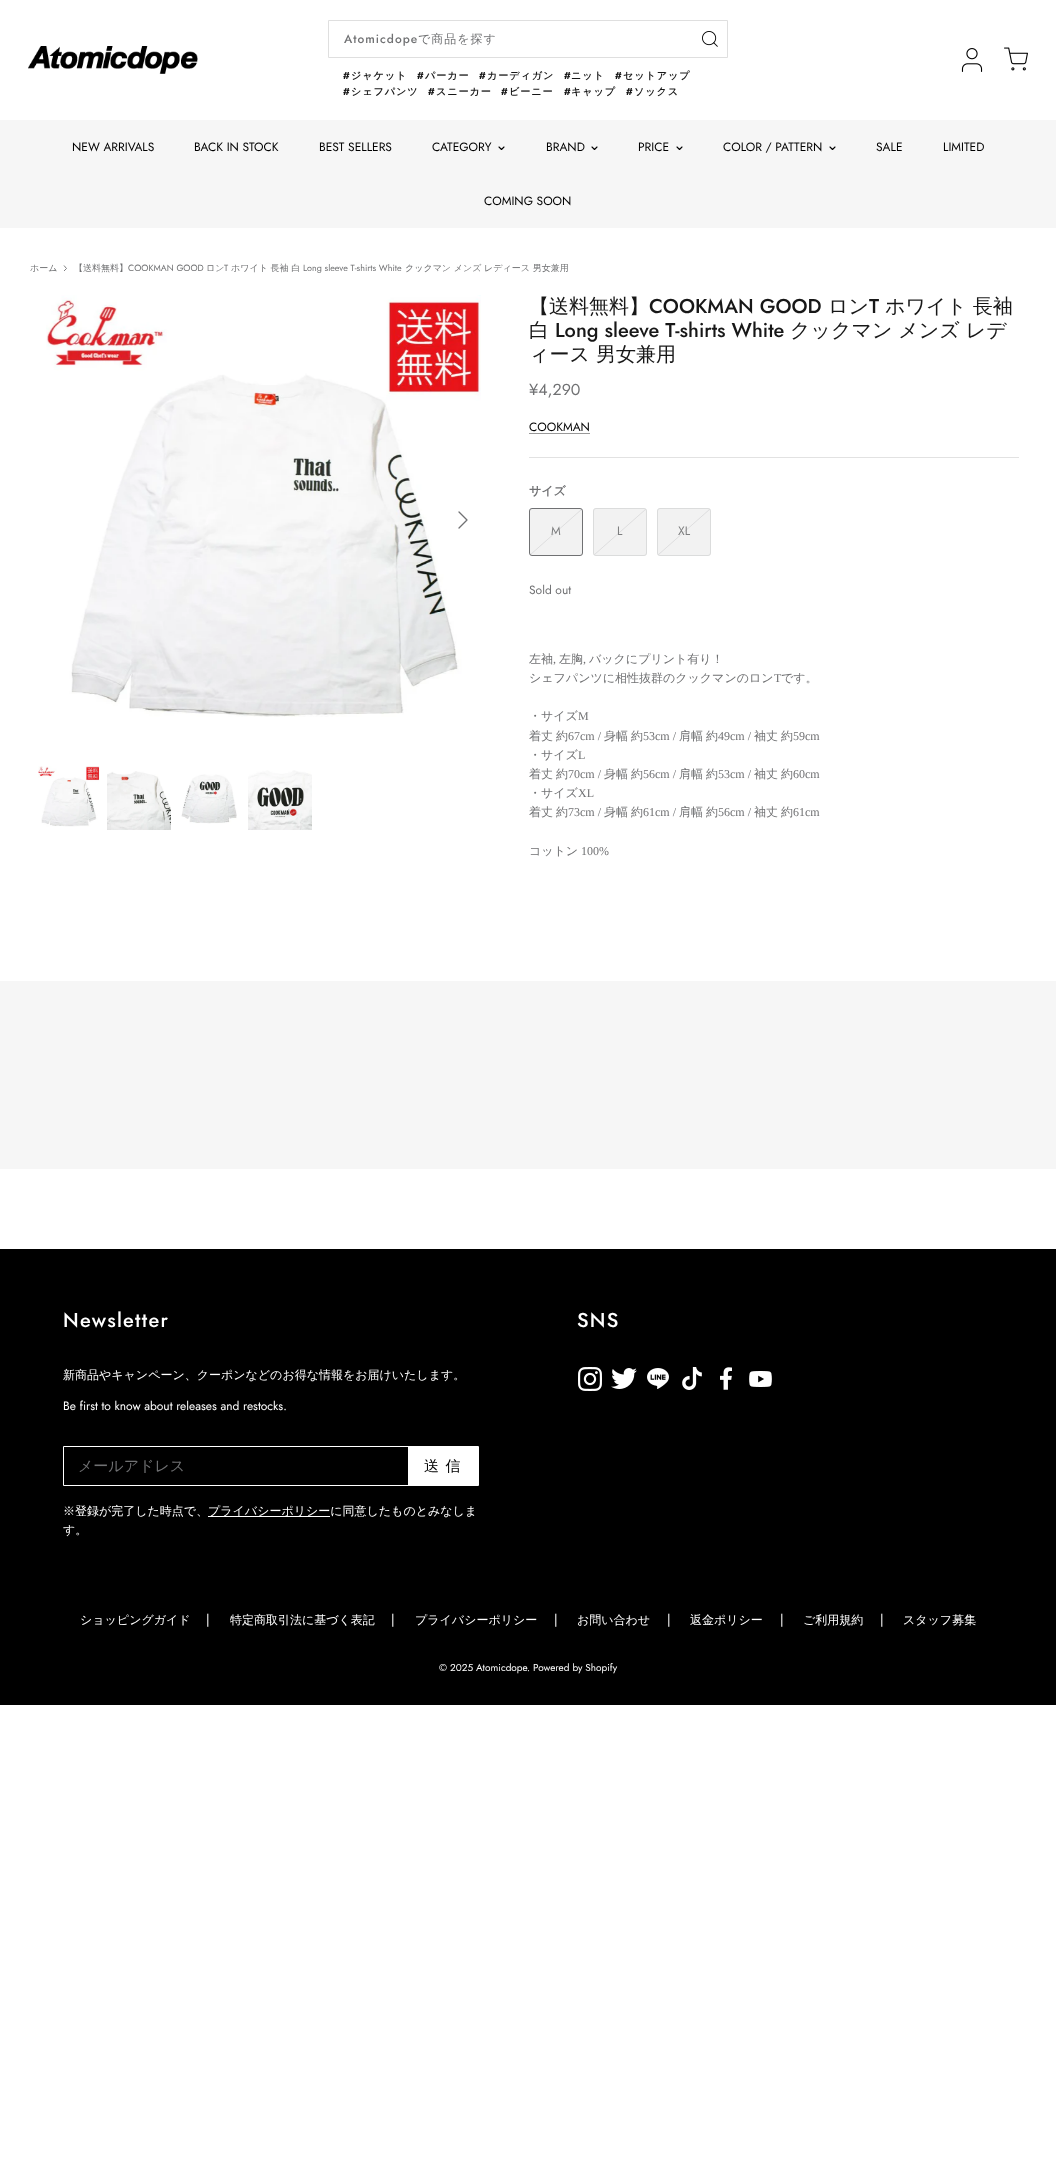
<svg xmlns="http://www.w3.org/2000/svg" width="1056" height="2169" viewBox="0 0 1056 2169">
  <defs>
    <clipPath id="clip1"><path d="M530 509h52v46H530z"/></clipPath>
    <clipPath id="clip2"><path d="M594 509h52v46H594z"/></clipPath>
    <clipPath id="clip3"><path d="M658 509h52v46H658z"/></clipPath>
  </defs>
  <rect width="100%" height="100%" fill="#fff"/>
  <image x="28" y="46" width="170" height="28" href="img/1.png"/>
  <path d="M328.5 20.5h399v37H328.5z" fill="none" stroke="#dfdfdf"/>
  <image x="702" y="31" width="16" height="16" href="img/2.png"/>
  <image x="961" y="48" width="22" height="24" href="img/3.png"/>
  <image x="1004" y="47" width="24" height="24" href="img/4.png"/>
  <path d="M0 120h1056v108H0z" fill="#f6f6f6"/>
  <path d="M499 147L501.5 149.5L504 147" fill="none" stroke="#000" stroke-width="1.1" stroke-linecap="round" stroke-linejoin="round"/>
  <path d="M592 147L594.5 149.5L597 147" fill="none" stroke="#000" stroke-width="1.1" stroke-linecap="round" stroke-linejoin="round"/>
  <path d="M677 147L679.5 149.5L682 147" fill="none" stroke="#000" stroke-width="1.1" stroke-linecap="round" stroke-linejoin="round"/>
  <path d="M830 147L832.5 149.5L835 147" fill="none" stroke="#000" stroke-width="1.1" stroke-linecap="round" stroke-linejoin="round"/>
  <path d="M64 271L66.5 268.5L64 265.5" fill="none" stroke="#707173" stroke-width="0.9"/>
  <image x="46" y="295" width="435" height="422" href="img/5.png"/>
  <path d="M459 528L467 520L459 512" fill="none" stroke="#707173" stroke-width="1.3" stroke-linecap="round" stroke-linejoin="round"/>
  <image x="38" y="766" width="62" height="61" href="img/6.png"/>
  <image x="107" y="771" width="64" height="59" href="img/7.png"/>
  <image x="181" y="774" width="56" height="50" href="img/8.png"/>
  <image x="248" y="770" width="64" height="60" href="img/9.png"/>
  <path d="M529 433h61v1H529z" fill="#999"/>
  <path d="M529 457h490v1H529z" fill="#e2e2e2"/>
  <rect x="529" y="508" width="54" height="48" rx="3" fill="#f2f2f2"/>
  <g clip-path="url(#clip1)">
    <path d="M582 509L530 555" fill="none" stroke="#d8d8d9" stroke-width="0.8"/>
  </g>
  <rect x="529.5" y="508.5" width="53" height="47" rx="2.5" fill="none" stroke="#707173"/>
  <rect x="593" y="508" width="54" height="48" rx="3" fill="#f2f2f2"/>
  <g clip-path="url(#clip2)">
    <path d="M646 509L594 555" fill="none" stroke="#d8d8d9" stroke-width="0.8"/>
  </g>
  <rect x="593.5" y="508.5" width="53" height="47" rx="2.5" fill="none" stroke="#dbdcdc"/>
  <rect x="657" y="508" width="54" height="48" rx="3" fill="#f2f2f2"/>
  <g clip-path="url(#clip3)">
    <path d="M710 509L658 555" fill="none" stroke="#d8d8d9" stroke-width="0.8"/>
  </g>
  <rect x="657.5" y="508.5" width="53" height="47" rx="2.5" fill="none" stroke="#dbdcdc"/>
  <path d="M0 981h1056v188H0z" fill="#f6f6f6"/>
  <path d="M0 1249h1056v456H0z" fill="#000"/>
  <path d="M63.5 1446.5h415v39H63.5z" fill="none" stroke="#fff"/>
  <path d="M408 1447h70v38H408z" fill="#fff"/>
  <path d="M208 1516h122v1H208z" fill="#fff"/>
  <image x="578" y="1367" width="24" height="24" href="img/10.png"/>
  <image x="611" y="1368" width="26" height="21" href="img/11.png"/>
  <image x="647" y="1368" width="22" height="21" href="img/12.png"/>
  <image x="682" y="1367" width="20" height="23" href="img/13.png"/>
  <image x="720" y="1367" width="12" height="23" href="img/14.png"/>
  <image x="749" y="1371" width="23" height="16" href="img/15.png"/>
  <text x="344" y="43" font-family="Jost" font-size="12" font-weight="500" letter-spacing="1" fill="#707173">Atomicdope</text>
  <text x="418" y="43" font-family="WenQuanYi Zen Hei" font-size="12" font-weight="500" letter-spacing="1" fill="#707173">で商品を探す</text>
  <text x="343" y="79" font-family="Jost" font-size="10" font-weight="bold" letter-spacing="1" fill="#171717">#</text>
  <text x="351" y="79" font-family="WenQuanYi Zen Hei" font-size="10" font-weight="bold" letter-spacing="1" fill="#171717">ジャケット</text>
  <text x="417" y="79" font-family="Jost" font-size="10" font-weight="bold" letter-spacing="1" fill="#171717">#</text>
  <text x="425" y="79" font-family="WenQuanYi Zen Hei" font-size="10" font-weight="bold" letter-spacing="1" fill="#171717">パーカー</text>
  <text x="479" y="79" font-family="Jost" font-size="10" font-weight="bold" letter-spacing="1" fill="#171717">#</text>
  <text x="487" y="79" font-family="WenQuanYi Zen Hei" font-size="10" font-weight="bold" letter-spacing="1" fill="#171717">カーディガン</text>
  <text x="564" y="79" font-family="Jost" font-size="10" font-weight="bold" letter-spacing="1" fill="#171717">#</text>
  <text x="571" y="79" font-family="WenQuanYi Zen Hei" font-size="10" font-weight="bold" letter-spacing="1" fill="#171717">ニット</text>
  <text x="615" y="79" font-family="Jost" font-size="10" font-weight="bold" letter-spacing="1" fill="#171717">#</text>
  <text x="623" y="79" font-family="WenQuanYi Zen Hei" font-size="10" font-weight="bold" letter-spacing="1" fill="#171717">セットアップ</text>
  <text x="343" y="95" font-family="Jost" font-size="10" font-weight="bold" letter-spacing="1" fill="#171717">#</text>
  <text x="351" y="95" font-family="WenQuanYi Zen Hei" font-size="10" font-weight="bold" letter-spacing="1" fill="#171717">シェフパンツ</text>
  <text x="428" y="95" font-family="Jost" font-size="10" font-weight="bold" letter-spacing="1" fill="#171717">#</text>
  <text x="436" y="95" font-family="WenQuanYi Zen Hei" font-size="10" font-weight="bold" letter-spacing="1" fill="#171717">スニーカー</text>
  <text x="501" y="95" font-family="Jost" font-size="10" font-weight="bold" letter-spacing="1" fill="#171717">#</text>
  <text x="509" y="95" font-family="WenQuanYi Zen Hei" font-size="10" font-weight="bold" letter-spacing="1" fill="#171717">ビーニー</text>
  <text x="564" y="95" font-family="Jost" font-size="10" font-weight="bold" letter-spacing="1" fill="#171717">#</text>
  <text x="571" y="95" font-family="WenQuanYi Zen Hei" font-size="10" font-weight="bold" letter-spacing="1" fill="#171717">キャップ</text>
  <text x="626" y="95" font-family="Jost" font-size="10" font-weight="bold" letter-spacing="1" fill="#171717">#</text>
  <text x="634" y="95" font-family="WenQuanYi Zen Hei" font-size="10" font-weight="bold" letter-spacing="1" fill="#171717">ソックス</text>
  <g font-family="Jost" font-size="12" fill="#000">
    <text x="72" y="151">NEW ARRIVALS</text>
    <text x="194" y="151">BACK IN STOCK</text>
    <text x="319" y="151">BEST SELLERS</text>
    <text x="432" y="151">CATEGORY</text>
    <text x="546" y="151">BRAND</text>
    <text x="638" y="151">PRICE</text>
    <text x="723" y="151">COLOR / PATTERN</text>
    <text x="876" y="151">SALE</text>
    <text x="943" y="151">LIMITED</text>
    <text x="484" y="205">COMING SOON</text>
  </g>
  <g font-family="WenQuanYi Zen Hei" font-size="9" font-weight="500" fill="#707173">
    <text x="30" y="271">ホーム</text>
    <text x="74" y="271">【送料無料】</text>
  </g>
  <text x="128" y="271" font-family="Jost" font-size="9" fill="#707173">COOKMAN GOOD</text>
  <text x="206" y="271" font-family="WenQuanYi Zen Hei" font-size="9" font-weight="500" fill="#707173">ロン</text>
  <text x="224" y="271" font-family="Jost" font-size="9" fill="#707173">T</text>
  <text x="231" y="271" font-family="WenQuanYi Zen Hei" font-size="9" font-weight="500" fill="#707173">ホワイト 長袖 白</text>
  <text x="303" y="271" font-family="Jost" font-size="9" fill="#707173">Long sleeve T-shirts White</text>
  <text x="405" y="271" font-family="WenQuanYi Zen Hei" font-size="9" font-weight="500" fill="#707173">クックマン メンズ レディース 男女兼用</text>
  <text x="529" y="313" font-family="WenQuanYi Zen Hei" font-size="20" font-weight="500" fill="#171717">【送料無料】</text>
  <text x="649" y="313" font-family="Jost" font-size="20" font-weight="500" fill="#171717">COOKMAN GOOD</text>
  <text x="828" y="313" font-family="WenQuanYi Zen Hei" font-size="20" font-weight="500" fill="#171717">ロン</text>
  <text x="869" y="313" font-family="Jost" font-size="20" font-weight="500" fill="#171717">T</text>
  <g font-family="WenQuanYi Zen Hei" font-size="20" font-weight="500" fill="#171717">
    <text x="885" y="313">ホワイト 長袖</text>
    <text x="529" y="337">白</text>
  </g>
  <text x="555" y="337" font-family="Jost" font-size="20" font-weight="500" fill="#171717">Long sleeve T-shirts White</text>
  <g font-family="WenQuanYi Zen Hei" font-size="20" font-weight="500" fill="#171717">
    <text x="790" y="337">クックマン メンズ レデ</text>
    <text x="529" y="361">ィース 男女兼用</text>
  </g>
  <text x="529" y="395" font-family="Jost" font-size="16" fill="#707173">¥4,290</text>
  <text x="529" y="431" font-family="Jost" font-size="12" fill="#000">COOKMAN</text>
  <text x="529" y="495" font-family="WenQuanYi Zen Hei" font-size="12" font-weight="bold" fill="#707173">サイズ</text>
  <g font-family="Jost" font-size="12" fill="#7d7e7f">
    <text x="551" y="535">M</text>
    <text x="617" y="535">L</text>
    <text x="678" y="535">XL</text>
  </g>
  <text x="529" y="594" font-family="Jost" font-size="12" fill="#707173">Sold out</text>
  <text x="529" y="663" font-family="WenQuanYi Zen Hei" font-size="12" font-weight="500" fill="#707173">左袖</text>
  <text x="553" y="663" font-family="Liberation Serif" font-size="12" fill="#707173">,</text>
  <text x="559" y="663" font-family="WenQuanYi Zen Hei" font-size="12" font-weight="500" fill="#707173">左胸</text>
  <text x="583" y="663" font-family="Liberation Serif" font-size="12" fill="#707173">,</text>
  <g font-family="WenQuanYi Zen Hei" font-size="12" font-weight="500" fill="#707173">
    <text x="589" y="663">バックにプリント有り！</text>
    <text x="529" y="682">シェフパンツに相性抜群のクックマンのロン</text>
  </g>
  <text x="774" y="682" font-family="Liberation Serif" font-size="12" fill="#707173">T</text>
  <g font-family="WenQuanYi Zen Hei" font-size="12" font-weight="500" fill="#707173">
    <text x="781" y="682">です。</text>
    <text x="529" y="720">・サイズ</text>
  </g>
  <text x="578" y="720" font-family="Liberation Serif" font-size="12" fill="#707173">M</text>
  <g font-family="WenQuanYi Zen Hei" font-size="12" font-weight="500" fill="#707173">
    <text x="529" y="740">着丈</text>
    <text x="556" y="740">約</text>
  </g>
  <text x="568" y="740" font-family="Liberation Serif" font-size="12" fill="#707173">67cm /</text>
  <g font-family="WenQuanYi Zen Hei" font-size="12" font-weight="500" fill="#707173">
    <text x="604" y="740">身幅</text>
    <text x="631" y="740">約</text>
  </g>
  <text x="643" y="740" font-family="Liberation Serif" font-size="12" fill="#707173">53cm /</text>
  <g font-family="WenQuanYi Zen Hei" font-size="12" font-weight="500" fill="#707173">
    <text x="679" y="740">肩幅</text>
    <text x="706" y="740">約</text>
  </g>
  <text x="718" y="740" font-family="Liberation Serif" font-size="12" fill="#707173">49cm /</text>
  <g font-family="WenQuanYi Zen Hei" font-size="12" font-weight="500" fill="#707173">
    <text x="754" y="740">袖丈</text>
    <text x="781" y="740">約</text>
  </g>
  <text x="793" y="740" font-family="Liberation Serif" font-size="12" fill="#707173">59cm</text>
  <text x="529" y="759" font-family="WenQuanYi Zen Hei" font-size="12" font-weight="500" fill="#707173">・サイズ</text>
  <text x="578" y="759" font-family="Liberation Serif" font-size="12" fill="#707173">L</text>
  <g font-family="WenQuanYi Zen Hei" font-size="12" font-weight="500" fill="#707173">
    <text x="529" y="778">着丈</text>
    <text x="556" y="778">約</text>
  </g>
  <text x="568" y="778" font-family="Liberation Serif" font-size="12" fill="#707173">70cm /</text>
  <g font-family="WenQuanYi Zen Hei" font-size="12" font-weight="500" fill="#707173">
    <text x="604" y="778">身幅</text>
    <text x="631" y="778">約</text>
  </g>
  <text x="643" y="778" font-family="Liberation Serif" font-size="12" fill="#707173">56cm /</text>
  <g font-family="WenQuanYi Zen Hei" font-size="12" font-weight="500" fill="#707173">
    <text x="679" y="778">肩幅</text>
    <text x="706" y="778">約</text>
  </g>
  <text x="718" y="778" font-family="Liberation Serif" font-size="12" fill="#707173">53cm /</text>
  <g font-family="WenQuanYi Zen Hei" font-size="12" font-weight="500" fill="#707173">
    <text x="754" y="778">袖丈</text>
    <text x="781" y="778">約</text>
  </g>
  <text x="793" y="778" font-family="Liberation Serif" font-size="12" fill="#707173">60cm</text>
  <text x="529" y="797" font-family="WenQuanYi Zen Hei" font-size="12" font-weight="500" fill="#707173">・サイズ</text>
  <text x="578" y="797" font-family="Liberation Serif" font-size="12" fill="#707173">XL</text>
  <g font-family="WenQuanYi Zen Hei" font-size="12" font-weight="500" fill="#707173">
    <text x="529" y="816">着丈</text>
    <text x="556" y="816">約</text>
  </g>
  <text x="568" y="816" font-family="Liberation Serif" font-size="12" fill="#707173">73cm /</text>
  <g font-family="WenQuanYi Zen Hei" font-size="12" font-weight="500" fill="#707173">
    <text x="604" y="816">身幅</text>
    <text x="631" y="816">約</text>
  </g>
  <text x="643" y="816" font-family="Liberation Serif" font-size="12" fill="#707173">61cm /</text>
  <g font-family="WenQuanYi Zen Hei" font-size="12" font-weight="500" fill="#707173">
    <text x="679" y="816">肩幅</text>
    <text x="706" y="816">約</text>
  </g>
  <text x="718" y="816" font-family="Liberation Serif" font-size="12" fill="#707173">56cm /</text>
  <g font-family="WenQuanYi Zen Hei" font-size="12" font-weight="500" fill="#707173">
    <text x="754" y="816">袖丈</text>
    <text x="781" y="816">約</text>
  </g>
  <text x="793" y="816" font-family="Liberation Serif" font-size="12" fill="#707173">61cm</text>
  <text x="529" y="855" font-family="WenQuanYi Zen Hei" font-size="12" font-weight="500" fill="#707173">コットン</text>
  <text x="581" y="855" font-family="Liberation Serif" font-size="12" fill="#707173">100%</text>
  <text x="63" y="1327" font-family="Jost" font-size="20" font-weight="500" letter-spacing="1.25" fill="#fff">Newsletter</text>
  <text x="63" y="1379" font-family="WenQuanYi Zen Hei" font-size="12" font-weight="500" fill="#fff">新商品やキャンペーン、クーポンなどのお得な情報をお届けいたします。</text>
  <text x="63" y="1410" font-family="Jost" font-size="12" fill="#fff">Be first to know about releases and restocks.</text>
  <text x="78" y="1471" font-family="WenQuanYi Zen Hei" font-size="15" font-weight="500" fill="#707173">メールアドレス</text>
  <text x="424" y="1471" font-family="WenQuanYi Zen Hei" font-size="15" font-weight="500" letter-spacing="1" fill="#000">送 信</text>
  <g font-family="WenQuanYi Zen Hei" font-size="12" font-weight="500" fill="#fff">
    <text x="63" y="1515">※登録が完了した時点で、</text>
    <text x="208" y="1515">プライバシーポリシーに同意したものとみなしま</text>
    <text x="63" y="1534">す。</text>
  </g>
  <text x="577" y="1327" font-family="Jost" font-size="20" font-weight="500" letter-spacing="1.25" fill="#fff">SNS</text>
  <text x="80" y="1624" font-family="WenQuanYi Zen Hei" font-size="12" font-weight="500" fill="#fff">ショッピングガイド</text>
  <text x="206" y="1624" font-family="Jost" font-size="13" fill="#fff">|</text>
  <text x="230" y="1624" font-family="WenQuanYi Zen Hei" font-size="12" font-weight="500" fill="#fff">特定商取引法に基づく表記</text>
  <text x="391" y="1624" font-family="Jost" font-size="13" fill="#fff">|</text>
  <text x="415" y="1624" font-family="WenQuanYi Zen Hei" font-size="12" font-weight="500" fill="#fff">プライバシーポリシー</text>
  <text x="554" y="1624" font-family="Jost" font-size="13" fill="#fff">|</text>
  <text x="577" y="1624" font-family="WenQuanYi Zen Hei" font-size="12" font-weight="500" fill="#fff">お問い合わせ</text>
  <text x="667" y="1624" font-family="Jost" font-size="13" fill="#fff">|</text>
  <text x="690" y="1624" font-family="WenQuanYi Zen Hei" font-size="12" font-weight="500" fill="#fff">返金ポリシー</text>
  <text x="780" y="1624" font-family="Jost" font-size="13" fill="#fff">|</text>
  <text x="803" y="1624" font-family="WenQuanYi Zen Hei" font-size="12" font-weight="500" fill="#fff">ご利用規約</text>
  <text x="880" y="1624" font-family="Jost" font-size="13" fill="#fff">|</text>
  <text x="903" y="1624" font-family="WenQuanYi Zen Hei" font-size="12" font-weight="500" fill="#fff">スタッフ募集</text>
  <g font-family="Jost" font-size="10" fill="#fff">
    <text x="439" y="1671">© 2025 Atomicdope</text>
    <text x="527" y="1671">. Powered by Shopify</text>
  </g>
</svg>
